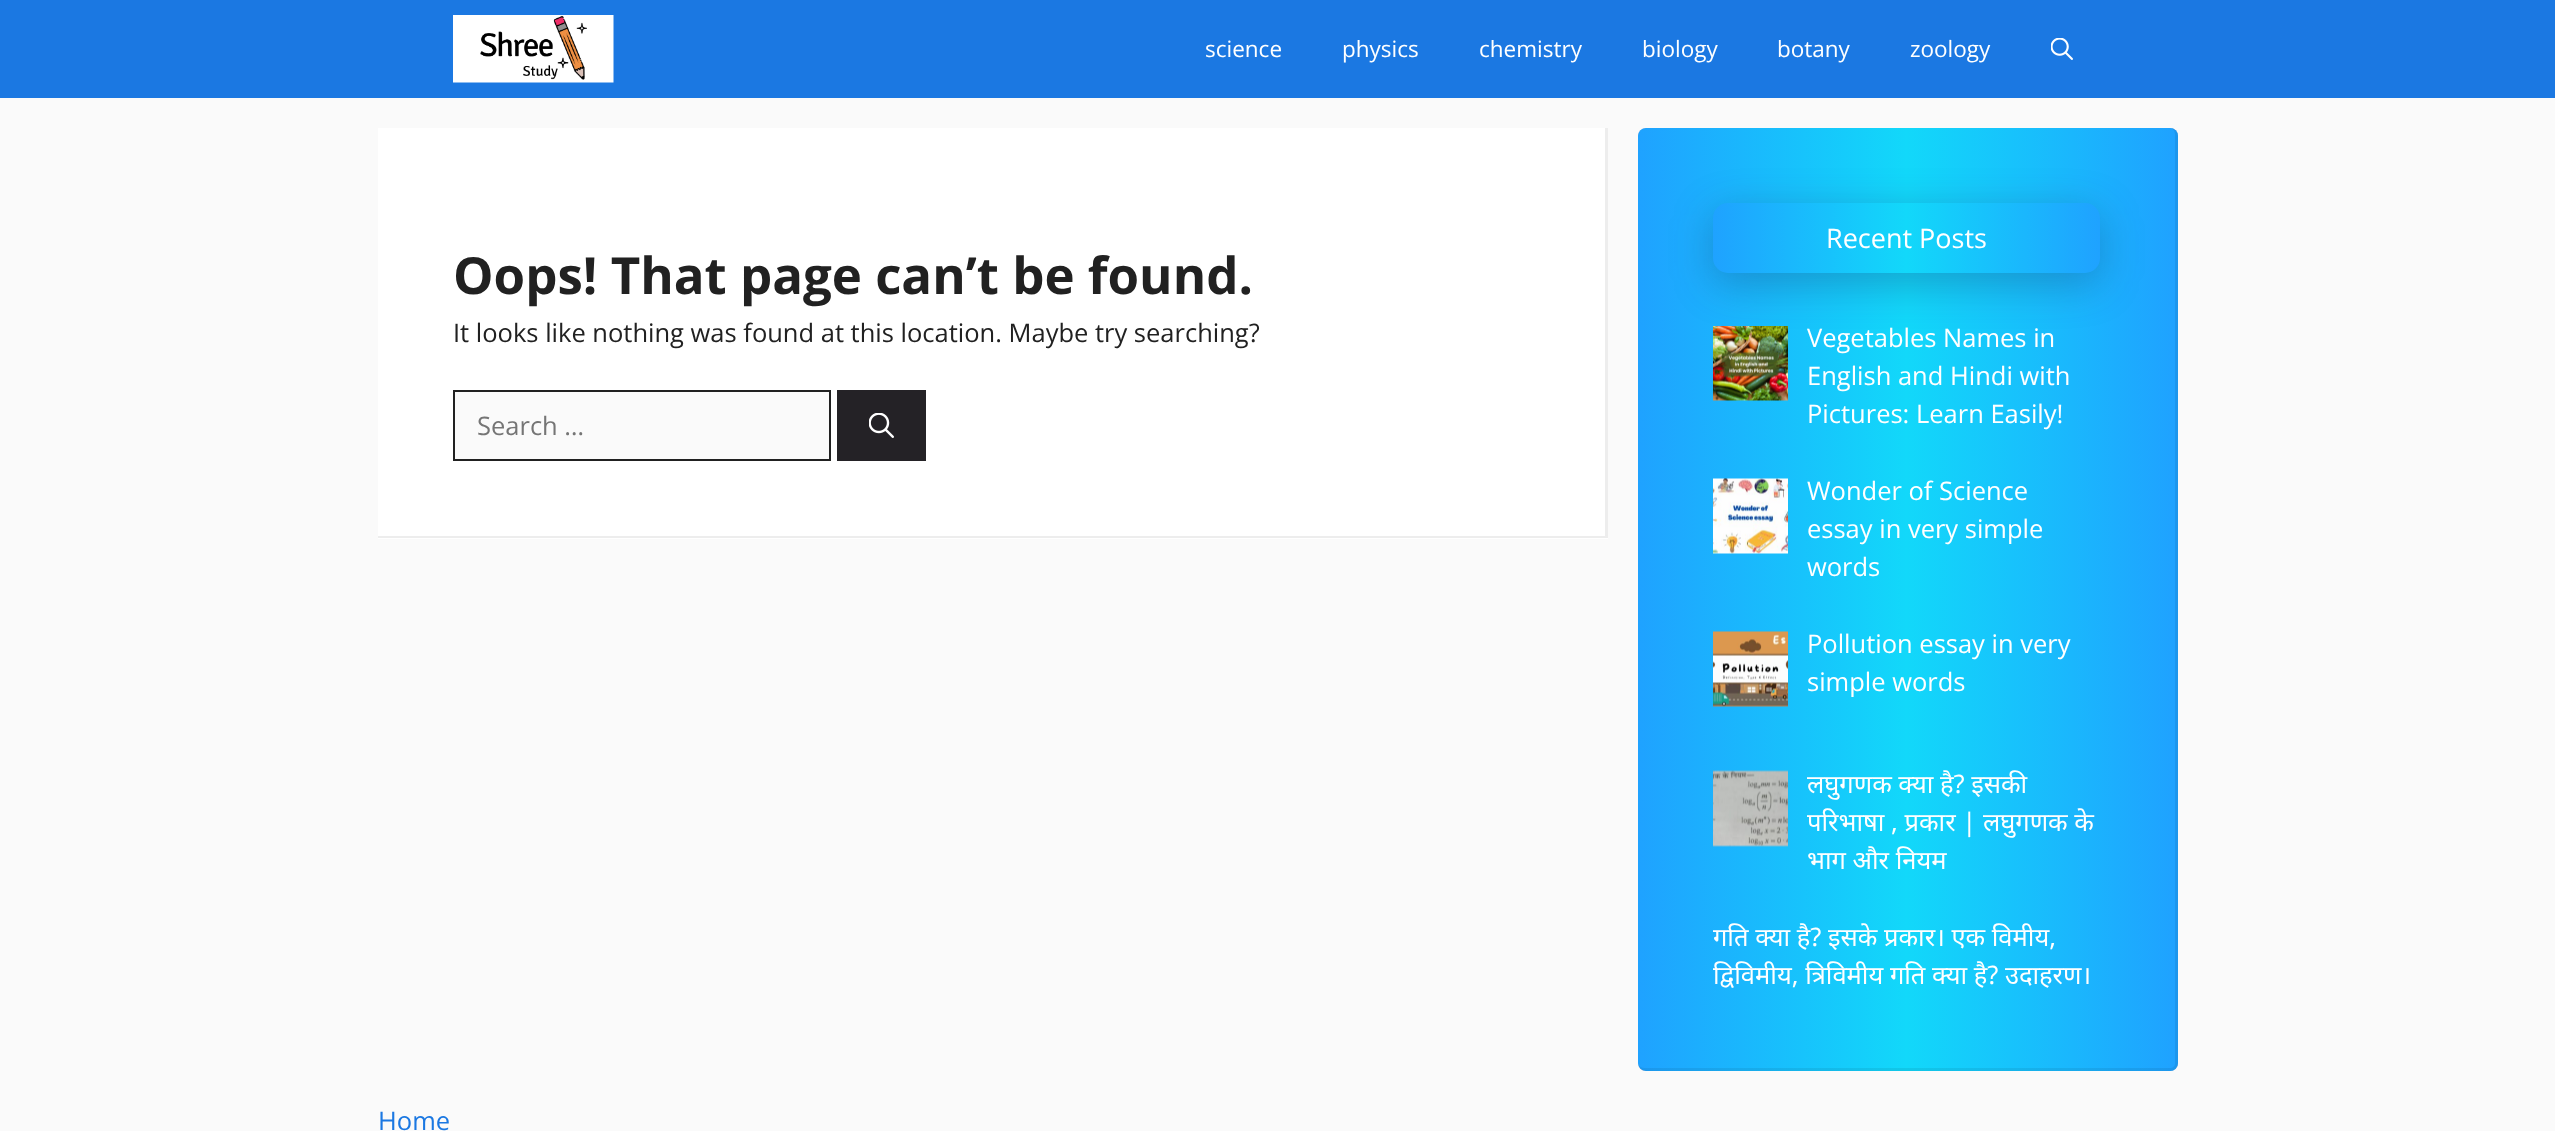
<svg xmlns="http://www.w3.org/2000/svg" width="2555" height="1131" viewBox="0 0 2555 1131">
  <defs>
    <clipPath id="clip1"><rect x="1638" y="128" width="540" height="943" rx="8"/></clipPath>
    <linearGradient id="g1" gradientUnits="userSpaceOnUse" x1="1638" y1="598" x2="2175" y2="598"><stop offset="0" stop-color="#1fa2ff"/><stop offset="0.5" stop-color="#12d8fa"/><stop offset="1" stop-color="#1fa2ff"/></linearGradient>
    <linearGradient id="g2" gradientUnits="userSpaceOnUse" x1="2175" y1="598" x2="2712" y2="598"><stop offset="0" stop-color="#1fa2ff"/><stop offset="0.5" stop-color="#12d8fa"/><stop offset="1" stop-color="#1fa2ff"/></linearGradient>
    <linearGradient id="g3" gradientUnits="userSpaceOnUse" x1="1713" y1="238" x2="2100" y2="238"><stop offset="0" stop-color="#1fa2ff"/><stop offset="0.5" stop-color="#12d8fa"/><stop offset="1" stop-color="#1fa2ff"/></linearGradient>
  </defs>
  <rect width="100%" height="100%" fill="#fafafa"/>
  <path d="M0 0h2555v98H0z" fill="#1b78e2"/>
  <image x="453" y="15" width="161" height="68" href="img/1.png"/>
  <image x="2051" y="38" width="22" height="22" href="img/2.png"/>
  <path d="M378 128h1230v411H378z" fill="#fff"/>
  <path d="M1608 128V538L1605 536V128Z" fill="#ededed"/>
  <path d="M1608 538H378V536H1605Z" fill="#00000012"/>
  <path d="M454 391h376v69H454z" fill="#fafafa" stroke="#212121" stroke-width="2"/>
  <path d="M837 390h89v71H837z" fill="#242226"/>
  <image x="869" y="413" width="25" height="25" href="img/3.png"/>
  <rect x="1638" y="128" width="540" height="943" rx="8" fill="#83b0de"/>
  <g clip-path="url(#clip1)">
    <path d="M1646 128H2175V1071H1646C1641.5 1071 1638 1067.5 1638 1063V136C1638 131.5 1641.5 128 1646 128Z" fill="url(#g1)"/>
    <path d="M2175 128h3v943H2175z" fill="url(#g2)"/>
  </g>
  <path d="M1646 128H2170C2175 128 2178 131 2178 135V1064C2178 1068 2175 1071 2170 1071H1646C1641 1071 1638 1068 1638 1064V135C1638 131 1641 128 1646 128ZM1646 128H2170C2173 128 2175 131 2175 135V1064C2175 1066 2173 1068 2170 1068H1646C1641 1068 1638 1066 1638 1064V135C1638 131 1641 128 1646 128Z" fill="#00000012" fill-rule="evenodd"/>
  <rect x="1713" y="213" width="387" height="71" rx="15" fill="#172b634d" filter="blur(21px)"/>
  <rect x="1713" y="203" width="387" height="70" rx="15" fill="url(#g3)"/>
  <image x="1713" y="326" width="75" height="75" href="img/4.png"/>
  <image x="1713" y="478" width="75" height="76" href="img/5.png"/>
  <image x="1713" y="631" width="75" height="76" href="img/6.png"/>
  <image x="1713" y="770" width="75" height="77" href="img/7.png"/>
  <g font-family="Open Sans" font-size="22.5" fill="#fff">
    <text x="1205" y="57">science</text>
    <text x="1342" y="57">physics</text>
    <text x="1479" y="57">chemistry</text>
    <text x="1642" y="57">biology</text>
    <text x="1777" y="57">botany</text>
    <text x="1910" y="57">zoology</text>
  </g>
  <text x="453" y="294" font-family="Open Sans" font-size="51" font-weight="bold" fill="#212121">Oops! That page can’t be found.</text>
  <text x="453" y="342" font-family="Open Sans" font-size="25.5" fill="#212121">It looks like nothing was found at this location. Maybe try searching?</text>
  <text x="477" y="435" font-family="Open Sans" font-size="25.5" fill="#757575">Search …</text>
  <text x="1826" y="248" font-family="Open Sans" font-size="27" fill="#fff">Recent Posts</text>
  <g font-family="Open Sans" font-size="25.5" fill="#fff">
    <text x="1807" y="347">Vegetables Names in</text>
    <text x="1807" y="385">English and Hindi with</text>
    <text x="1807" y="423">Pictures: Learn Easily!</text>
    <text x="1807" y="500">Wonder of Science</text>
    <text x="1807" y="538">essay in very simple</text>
    <text x="1807" y="576">words</text>
    <text x="1807" y="653">Pollution essay in very</text>
    <text x="1807" y="691">simple words</text>
  </g>
  <g font-family="Noto Sans" font-size="25.5" fill="#fff">
    <text x="1807" y="793">लघुगणक क्या है? इसकी</text>
    <text x="1807" y="831">परिभाषा , प्रकार | लघुगणक के</text>
    <text x="1807" y="869">भाग और नियम</text>
    <text x="1713" y="946">गति क्या है? इसके प्रकार। एक विमीय,</text>
    <text x="1713" y="984">द्विविमीय, त्रिविमीय गति क्या है? उदाहरण।</text>
  </g>
  <text x="378" y="1130" font-family="Open Sans" font-size="25.5" fill="#1b78e2">Home</text>
</svg>
